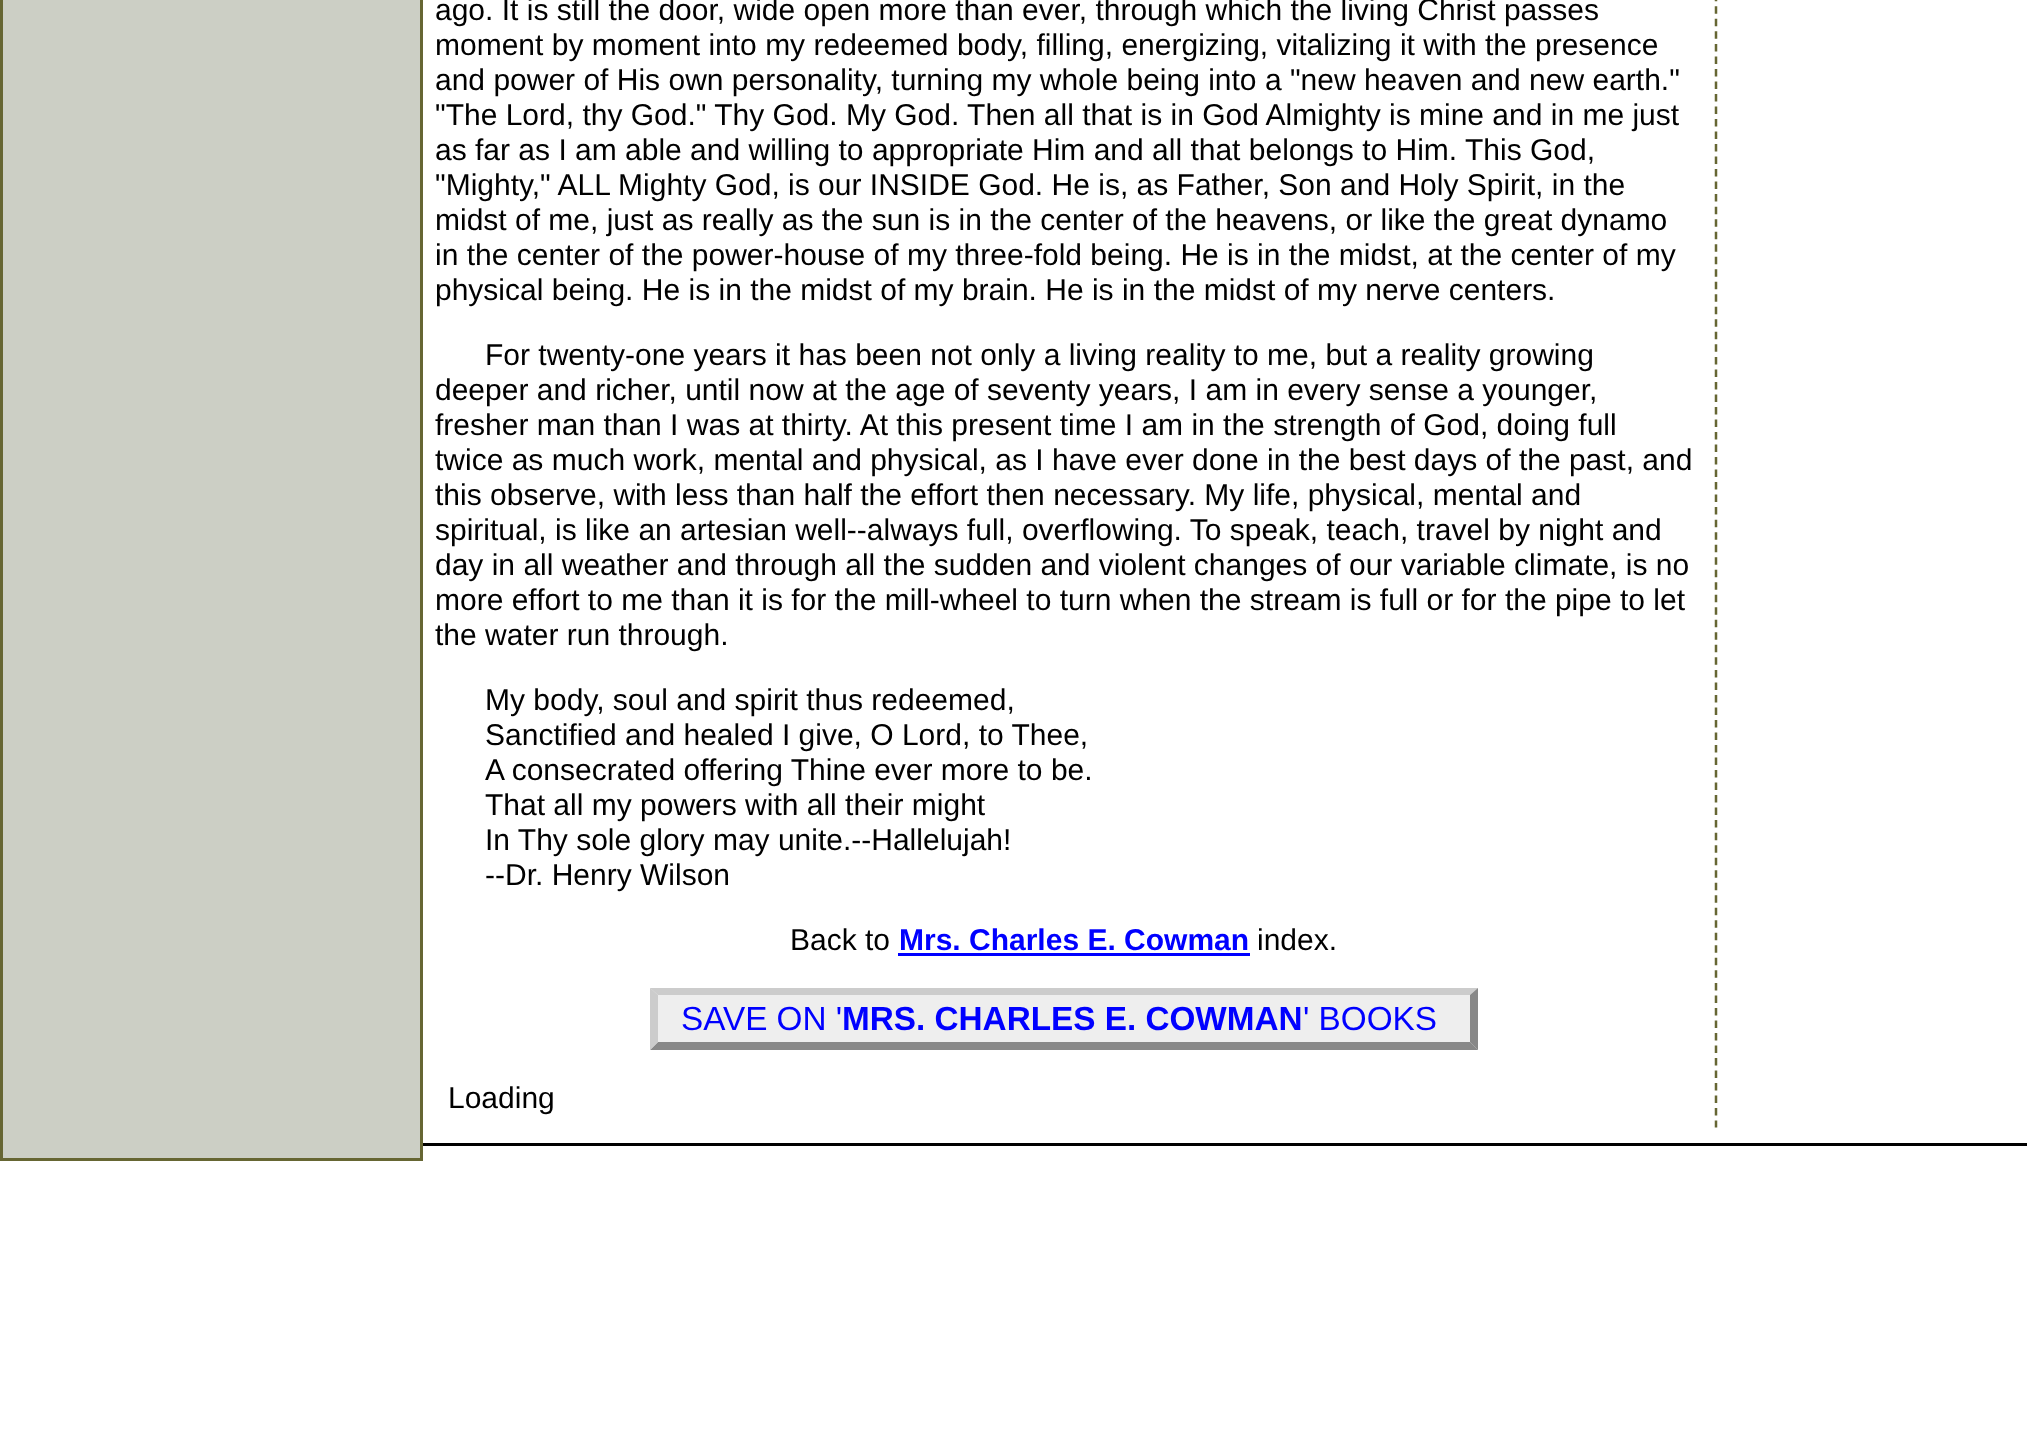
<svg xmlns="http://www.w3.org/2000/svg" width="2027" height="1435" viewBox="0 0 2027 1435">
  <rect width="100%" height="100%" fill="#fff"/>
  <path d="M3 0h417v1158H3z" fill="#cccfc5"/>
  <path d="M420 0h3v1160H420z" fill="#663"/>
  <path d="M0 1158h423v3H0z" fill="#663"/>
  <path d="M0 0h3v1160H0z" fill="#663"/>
  <path d="M898 953h352v3H898z" fill="#00f"/>
  <path d="M650 988h828v62H650z" fill="#eee"/>
  <path d="M650 988H1478L1470 995H658Z" fill="#ccc"/>
  <path d="M1478 988V1050L1470 1042V995Z" fill="#888"/>
  <path d="M1478 1050H650L658 1042H1470Z" fill="#888"/>
  <path d="M650 1050V988L658 995V1042Z" fill="#ccc"/>
  <path d="M1716-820V1127.5" fill="none" stroke="#663" stroke-width="2.5" stroke-dasharray="7.5 5.02"/>
  <path d="M423 1143h1604v3H423z" fill="#000"/>
  <g font-family="Liberation Sans" font-size="30" fill="#000">
    <text x="435" y="20">ago. It is still the door, wide open more than ever, through which the living Christ passes</text>
    <text x="435" y="55">moment by moment into my redeemed body, filling, energizing, vitalizing it with the presence</text>
    <text x="435" y="90">and power of His own personality, turning my whole being into a "new heaven and new earth."</text>
    <text x="435" y="125">"The Lord, thy God." Thy God. My God. Then all that is in God Almighty is mine and in me just</text>
    <text x="435" y="160">as far as I am able and willing to appropriate Him and all that belongs to Him. This God,</text>
    <text x="435" y="195">"Mighty," ALL Mighty God, is our INSIDE God. He is, as Father, Son and Holy Spirit, in the</text>
    <text x="435" y="230">midst of me, just as really as the sun is in the center of the heavens, or like the great dynamo</text>
    <text x="435" y="265">in the center of the power-house of my three-fold being. He is in the midst, at the center of my</text>
    <text x="435" y="300">physical being. He is in the midst of my brain. He is in the midst of my nerve centers.</text>
    <text x="485" y="365">For twenty-one years it has been not only a living reality to me, but a reality growing</text>
    <text x="435" y="400">deeper and richer, until now at the age of seventy years, I am in every sense a younger,</text>
    <text x="435" y="435">fresher man than I was at thirty. At this present time I am in the strength of God, doing full</text>
    <text x="435" y="470">twice as much work, mental and physical, as I have ever done in the best days of the past, and</text>
    <text x="435" y="505">this observe, with less than half the effort then necessary. My life, physical, mental and</text>
    <text x="435" y="540">spiritual, is like an artesian well--always full, overflowing. To speak, teach, travel by night and</text>
    <text x="435" y="575">day in all weather and through all the sudden and violent changes of our variable climate, is no</text>
    <text x="435" y="610">more effort to me than it is for the mill-wheel to turn when the stream is full or for the pipe to let</text>
    <text x="435" y="645">the water run through.</text>
    <text x="485" y="710">My body, soul and spirit thus redeemed,</text>
    <text x="485" y="745">Sanctified and healed I give, O Lord, to Thee,</text>
    <text x="485" y="780">A consecrated offering Thine ever more to be.</text>
    <text x="485" y="815">That all my powers with all their might</text>
    <text x="485" y="850">In Thy sole glory may unite.--Hallelujah!</text>
    <text x="485" y="885">--Dr. Henry Wilson</text>
    <text x="790" y="950">Back to</text>
  </g>
  <text x="899" y="950" font-family="Liberation Sans" font-size="30" font-weight="bold" fill="#00f">Mrs. Charles E. Cowman</text>
  <text x="1257" y="950" font-family="Liberation Sans" font-size="30" fill="#000">index.</text>
  <text x="681" y="1030" font-family="Liberation Sans" font-size="33.3" fill="#00f">SAVE ON '</text>
  <text x="842" y="1030" font-family="Liberation Sans" font-size="33.3" font-weight="bold" fill="#00f">MRS. CHARLES E. COWMAN</text>
  <text x="1303" y="1030" font-family="Liberation Sans" font-size="33.3" fill="#00f">' BOOKS</text>
  <text x="448" y="1108" font-family="Liberation Sans" font-size="30" fill="#000">Loading</text>
</svg>
